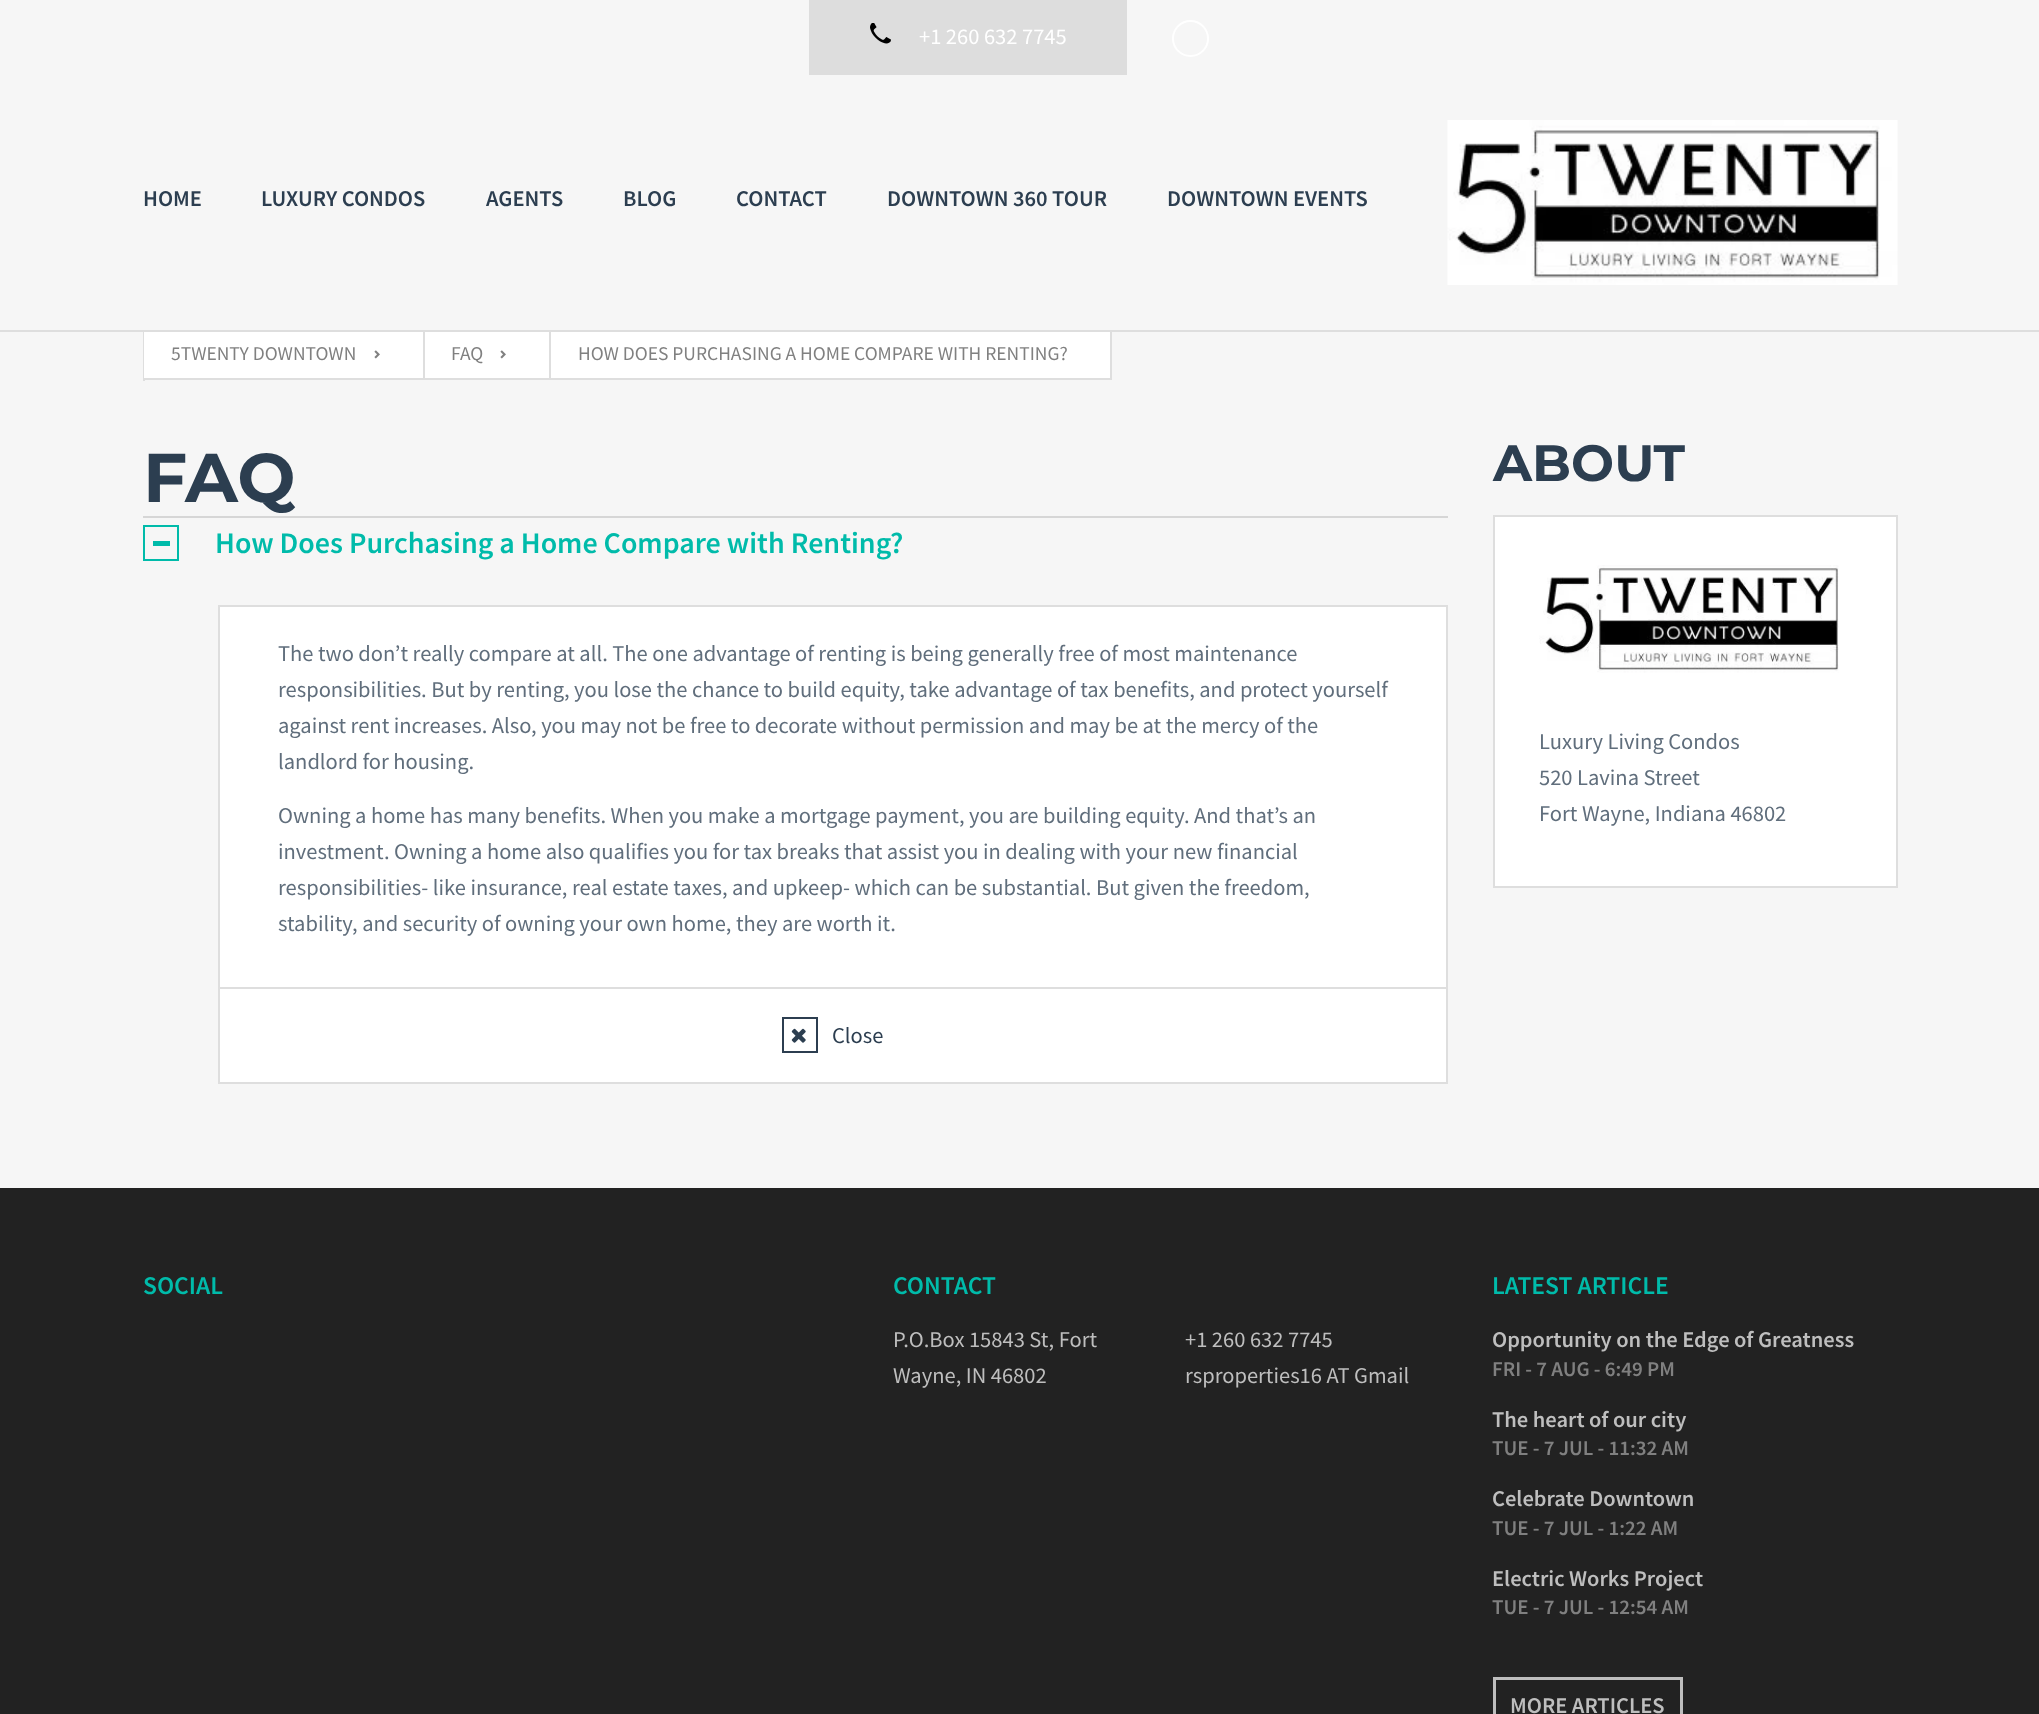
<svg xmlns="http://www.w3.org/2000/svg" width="2039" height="1714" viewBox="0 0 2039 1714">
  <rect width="100%" height="100%" fill="#f6f6f6"/>
  <path d="M809 0h318v75H809z" fill="#ddd"/>
  <image x="870" y="23" width="21" height="21" href="img/1.png"/>
  <circle cx="1190.5" cy="38.5" r="17.5" fill="none" stroke="#fff" stroke-width="2"/>
  <image x="1447" y="120" width="451" height="165" href="img/2.png"/>
  <path d="M0 330h2039v2H0z" fill="#dedede"/>
  <path d="M143 332h2v49H143z" fill="#dedede"/>
  <path d="M144 332h279v46H144z" fill="#fff"/>
  <path d="M423 330h2v50H423z" fill="#dedede"/>
  <path d="M144 378h281v2H144z" fill="#dedede"/>
  <image x="374" y="350" width="6" height="9" href="img/3.png"/>
  <path d="M425 332h124v46H425z" fill="#fff"/>
  <path d="M549 330h2v50H549z" fill="#dedede"/>
  <path d="M425 378h126v2H425z" fill="#dedede"/>
  <image x="500" y="350" width="6" height="9" href="img/3.png"/>
  <path d="M551 332h559v46H551z" fill="#fff"/>
  <path d="M1110 330h2v50H1110z" fill="#dedede"/>
  <path d="M551 378h561v2H551z" fill="#dedede"/>
  <path d="M143 516h1305v2H143z" fill="#d6d6d6"/>
  <path d="M144 526h34v34H144z" fill="none" stroke="#0ba" stroke-width="2"/>
  <path d="M153 541h17v5H153z" fill="#0ba"/>
  <path d="M219 606h1228v382H219z" fill="#fff" stroke="#dedede" stroke-width="2"/>
  <path d="M220 989h1226v93H220z" fill="#fff"/>
  <path d="M1446 989h2v94H1446z" fill="#dedede"/>
  <path d="M218 1082h1230v2H218z" fill="#dedede"/>
  <path d="M218 989h2v94H218z" fill="#dedede"/>
  <path d="M783 1018h34v34H783z" fill="none" stroke="#2c3e50" stroke-width="2"/>
  <image x="791" y="1028" width="15" height="15" href="img/4.png"/>
  <path d="M1494 516h403v371H1494z" fill="#fff" stroke="#dedede" stroke-width="2"/>
  <image x="1539" y="565" width="300" height="108" href="img/5.png"/>
  <path d="M0 1188h2039v526H0z" fill="#222"/>
  <path d="M1494.5 1678.5h187v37H1494.5z" fill="none" stroke="#bebebe" stroke-width="3"/>
  <text x="919" y="44" font-family="Source Sans Pro" font-size="22.5" fill="#fff">+1 260 632 7745</text>
  <g font-family="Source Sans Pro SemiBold" font-size="22.5" font-weight="600" fill="#2c3e50">
    <text x="143" y="206">HOME</text>
    <text x="261" y="206">LUXURY CONDOS</text>
    <text x="486" y="206">AGENTS</text>
    <text x="623" y="206">BLOG</text>
    <text x="736" y="206">CONTACT</text>
    <text x="887" y="206">DOWNTOWN 360 TOUR</text>
    <text x="1167" y="206">DOWNTOWN EVENTS</text>
  </g>
  <g font-family="Source Sans Pro" font-size="19.5" fill="#808080">
    <text x="171" y="360">5TWENTY DOWNTOWN</text>
    <text x="451" y="360">FAQ</text>
    <text x="578" y="360">HOW DOES PURCHASING A HOME COMPARE WITH RENTING?</text>
  </g>
  <text x="143" y="502" font-family="Montserrat" font-size="69" font-weight="bold" fill="#2c3e50">FAQ</text>
  <text x="215" y="553" font-family="Source Sans Pro SemiBold" font-size="30" font-weight="600" fill="#0ba">How Does Purchasing a Home Compare with Renting?</text>
  <g font-family="Source Sans Pro" font-size="22.5" fill="#606e7c">
    <text x="278" y="661">The two don’t really compare at all. The one advantage of renting is being generally free of most maintenance</text>
    <text x="278" y="697">responsibilities. But by renting, you lose the chance to build equity, take advantage of tax benefits, and protect yourself</text>
    <text x="278" y="733">against rent increases. Also, you may not be free to decorate without permission and may be at the mercy of the</text>
    <text x="278" y="769">landlord for housing.</text>
    <text x="278" y="823">Owning a home has many benefits. When you make a mortgage payment, you are building equity. And that’s an</text>
    <text x="278" y="859">investment. Owning a home also qualifies you for tax breaks that assist you in dealing with your new financial</text>
    <text x="278" y="895">responsibilities- like insurance, real estate taxes, and upkeep- which can be substantial. But given the freedom,</text>
    <text x="278" y="931">stability, and security of owning your own home, they are worth it.</text>
  </g>
  <text x="832" y="1043" font-family="Source Sans Pro" font-size="22.5" fill="#2c3e50">Close</text>
  <text x="1493" y="481" font-family="Montserrat" font-size="51" font-weight="bold" fill="#2c3e50">ABOUT</text>
  <g font-family="Source Sans Pro" font-size="22.5" fill="#606e7c">
    <text x="1539" y="749">Luxury Living Condos</text>
    <text x="1539" y="785">520 Lavina Street</text>
    <text x="1539" y="821">Fort Wayne, Indiana 46802</text>
  </g>
  <g font-family="Source Sans Pro SemiBold" font-size="25.5" font-weight="600" fill="#0ba">
    <text x="143" y="1294">SOCIAL</text>
    <text x="893" y="1294">CONTACT</text>
  </g>
  <g font-family="Source Sans Pro" font-size="22.5" fill="#bebebe">
    <text x="893" y="1347">P.O.Box 15843 St, Fort</text>
    <text x="893" y="1383">Wayne, IN 46802</text>
    <text x="1185" y="1347">+1 260 632 7745</text>
    <text x="1185" y="1383">rsproperties16 AT Gmail</text>
  </g>
  <text x="1492" y="1294" font-family="Source Sans Pro SemiBold" font-size="25.5" font-weight="600" fill="#0ba">LATEST ARTICLE</text>
  <text x="1492" y="1347" font-family="Source Sans Pro SemiBold" font-size="22.5" font-weight="600" fill="#bebebe">Opportunity on the Edge of Greatness</text>
  <text x="1492" y="1376" font-family="Source Sans Pro SemiBold" font-size="21" font-weight="600" fill="#808080">FRI - 7 AUG - 6:49 PM</text>
  <text x="1492" y="1427" font-family="Source Sans Pro SemiBold" font-size="22.5" font-weight="600" fill="#bebebe">The heart of our city</text>
  <text x="1492" y="1455" font-family="Source Sans Pro SemiBold" font-size="21" font-weight="600" fill="#808080">TUE - 7 JUL - 11:32 AM</text>
  <text x="1492" y="1506" font-family="Source Sans Pro SemiBold" font-size="22.5" font-weight="600" fill="#bebebe">Celebrate Downtown</text>
  <text x="1492" y="1535" font-family="Source Sans Pro SemiBold" font-size="21" font-weight="600" fill="#808080">TUE - 7 JUL - 1:22 AM</text>
  <text x="1492" y="1586" font-family="Source Sans Pro SemiBold" font-size="22.5" font-weight="600" fill="#bebebe">Electric Works Project</text>
  <text x="1492" y="1614" font-family="Source Sans Pro SemiBold" font-size="21" font-weight="600" fill="#808080">TUE - 7 JUL - 12:54 AM</text>
  <text x="1510" y="1713" font-family="Source Sans Pro SemiBold" font-size="22.5" font-weight="600" fill="#bebebe">MORE ARTICLES</text>
</svg>
